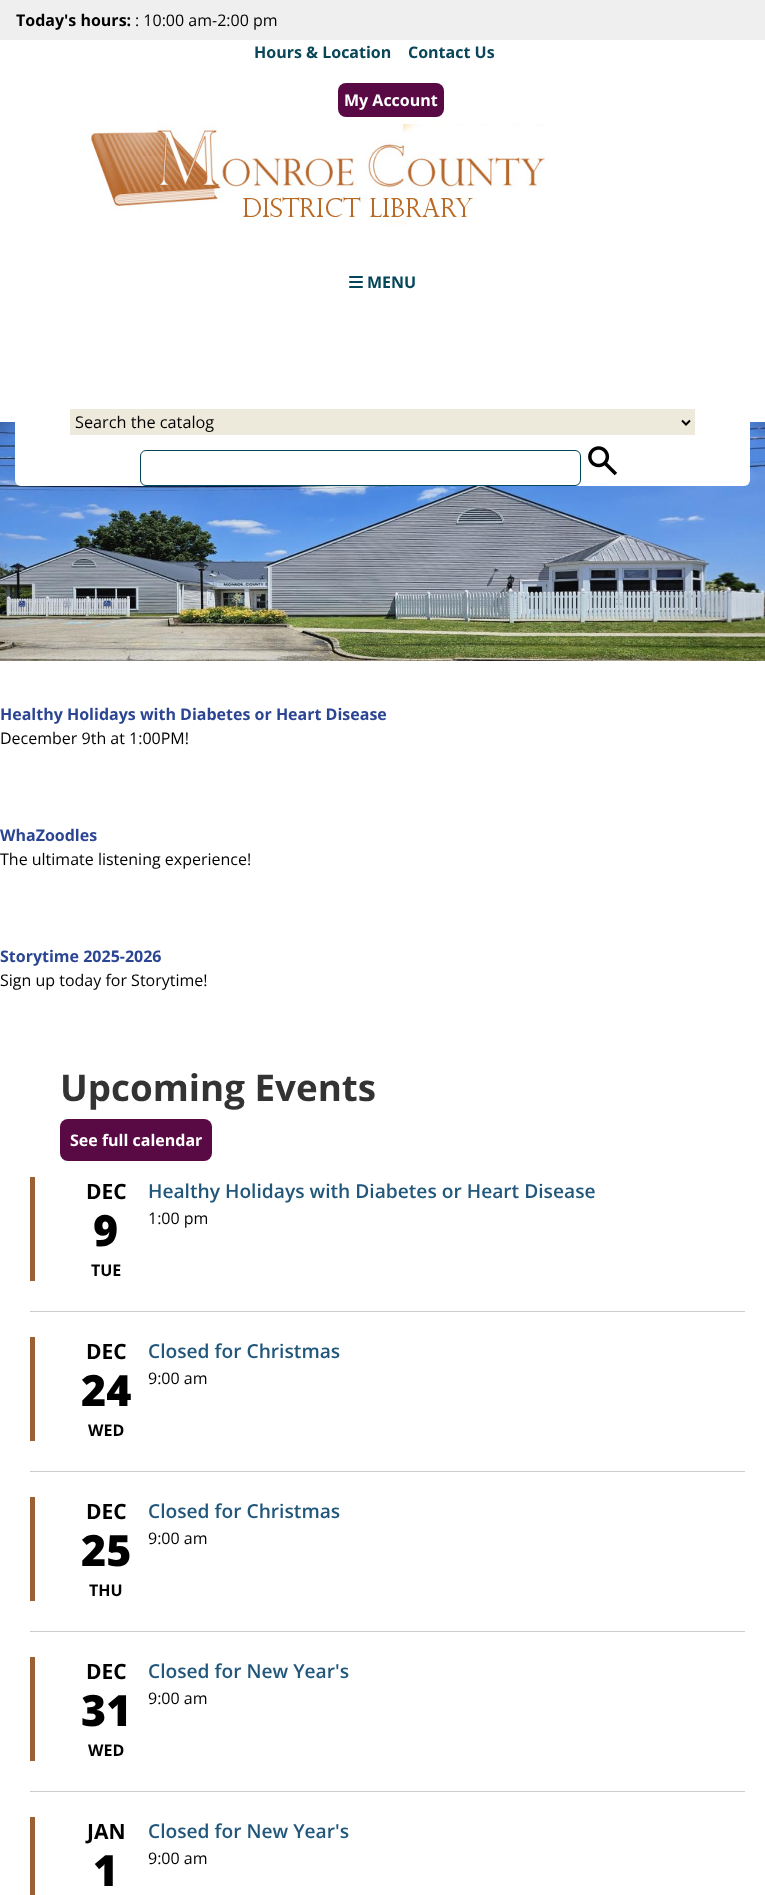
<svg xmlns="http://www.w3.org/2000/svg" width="765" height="1895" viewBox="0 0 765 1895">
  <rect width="100%" height="100%" fill="#fff"/>
  <path d="M0 0h765v40H0z" fill="#efefef"/>
  <rect x="338" y="83" width="106" height="34" rx="8" fill="#590a44"/>
  <image x="85" y="124" width="464" height="102" href="img/1.png"/>
  <image x="349" y="276" width="14" height="12" href="img/2.png"/>
  <image x="0" y="422" width="765" height="239" href="img/4.png"/>
  <rect x="15" y="409" width="735" height="77" rx="6" fill="#fff"/>
  <path d="M70 409h625v26H70z" fill="#edeadc"/>
  <path d="M682 420.5L686 424.5L690 420.5" fill="none" stroke="#000" stroke-width="2"/>
  <rect x="140.5" y="450.5" width="440" height="35" rx="5.5" fill="none" stroke="#024659"/>
  <image x="588" y="446" width="30" height="30" href="img/3.png"/>
  <rect x="60" y="1119" width="152" height="42" rx="8" fill="#590a44"/>
  <path d="M30 1311h715v1H30z" fill="#ccc"/>
  <path d="M30 1177h5v104H30z" fill="#9c6035"/>
  <path d="M30 1471h715v1H30z" fill="#ccc"/>
  <path d="M30 1337h5v104H30z" fill="#9c6035"/>
  <path d="M30 1631h715v1H30z" fill="#ccc"/>
  <path d="M30 1497h5v104H30z" fill="#9c6035"/>
  <path d="M30 1791h715v1H30z" fill="#ccc"/>
  <path d="M30 1657h5v104H30z" fill="#9c6035"/>
  <path d="M30 1817h5v78H30z" fill="#9c6035"/>
  <text x="16" y="26" font-family="Open Sans" font-size="16" font-weight="bold" fill="#000">Today's hours:</text>
  <text x="135" y="26" font-family="Open Sans" font-size="16" fill="#000">: 10:00 am-2:00 pm</text>
  <g font-family="Open Sans" font-size="16" font-weight="bold" fill="#084658">
    <text x="254" y="58">Hours &amp; Location</text>
    <text x="408" y="58">Contact Us</text>
  </g>
  <text x="344" y="106" font-family="Open Sans" font-size="16" font-weight="bold" fill="#fff">My Account</text>
  <text x="367" y="288" font-family="Open Sans" font-size="16" font-weight="bold" fill="#024659">MENU</text>
  <text x="75" y="428" font-family="Open Sans" font-size="16.25" fill="#000">Search the catalog</text>
  <text x="0" y="720" font-family="Open Sans" font-size="16" font-weight="bold" fill="#2b4593">Healthy Holidays with Diabetes or Heart Disease</text>
  <text x="0" y="744" font-family="Open Sans" font-size="16" fill="#000">December 9th at 1:00PM!</text>
  <text x="0" y="841" font-family="Open Sans" font-size="16" font-weight="bold" fill="#2b4593">WhaZoodles</text>
  <text x="0" y="865" font-family="Open Sans" font-size="16" fill="#000">The ultimate listening experience!</text>
  <text x="0" y="962" font-family="Open Sans" font-size="16" font-weight="bold" fill="#2b4593">Storytime 2025-2026</text>
  <text x="0" y="986" font-family="Open Sans" font-size="16" fill="#000">Sign up today for Storytime!</text>
  <text x="60" y="1101" font-family="Open Sans" font-size="36.75" font-weight="bold" fill="#333">Upcoming Events</text>
  <text x="70" y="1146" font-family="Open Sans" font-size="16" font-weight="bold" fill="#fff">See full calendar</text>
  <text x="86" y="1199" font-family="Open Sans" font-size="21" font-weight="bold" fill="#000">DEC</text>
  <text x="93" y="1246" font-family="Open Sans" font-size="43" font-weight="800" fill="#000">9</text>
  <text x="91" y="1276" font-family="Open Sans" font-size="16" font-weight="bold" fill="#000">TUE</text>
  <text x="148" y="1198" font-family="Open Sans" font-size="19.2" font-weight="600" fill="#22577c">Healthy Holidays with Diabetes or Heart Disease</text>
  <text x="148" y="1224" font-family="Open Sans" font-size="16" fill="#000">1:00 pm</text>
  <text x="86" y="1359" font-family="Open Sans" font-size="21" font-weight="bold" fill="#000">DEC</text>
  <text x="81" y="1406" font-family="Open Sans" font-size="43" font-weight="800" fill="#000">24</text>
  <text x="88" y="1436" font-family="Open Sans" font-size="16" font-weight="bold" fill="#000">WED</text>
  <text x="148" y="1358" font-family="Open Sans" font-size="19.2" font-weight="600" fill="#22577c">Closed for Christmas</text>
  <text x="148" y="1384" font-family="Open Sans" font-size="16" fill="#000">9:00 am</text>
  <text x="86" y="1519" font-family="Open Sans" font-size="21" font-weight="bold" fill="#000">DEC</text>
  <text x="81" y="1566" font-family="Open Sans" font-size="43" font-weight="800" fill="#000">25</text>
  <text x="89" y="1596" font-family="Open Sans" font-size="16" font-weight="bold" fill="#000">THU</text>
  <text x="148" y="1518" font-family="Open Sans" font-size="19.2" font-weight="600" fill="#22577c">Closed for Christmas</text>
  <text x="148" y="1544" font-family="Open Sans" font-size="16" fill="#000">9:00 am</text>
  <text x="86" y="1679" font-family="Open Sans" font-size="21" font-weight="bold" fill="#000">DEC</text>
  <text x="81" y="1726" font-family="Open Sans" font-size="43" font-weight="800" fill="#000">31</text>
  <text x="88" y="1756" font-family="Open Sans" font-size="16" font-weight="bold" fill="#000">WED</text>
  <text x="148" y="1678" font-family="Open Sans" font-size="19.2" font-weight="600" fill="#22577c">Closed for New Year's</text>
  <text x="148" y="1704" font-family="Open Sans" font-size="16" fill="#000">9:00 am</text>
  <text x="87" y="1839" font-family="Open Sans" font-size="21" font-weight="bold" fill="#000">JAN</text>
  <text x="93" y="1886" font-family="Open Sans" font-size="43" font-weight="800" fill="#000">1</text>
  <text x="148" y="1838" font-family="Open Sans" font-size="19.2" font-weight="600" fill="#22577c">Closed for New Year's</text>
  <text x="148" y="1864" font-family="Open Sans" font-size="16" fill="#000">9:00 am</text>
</svg>
